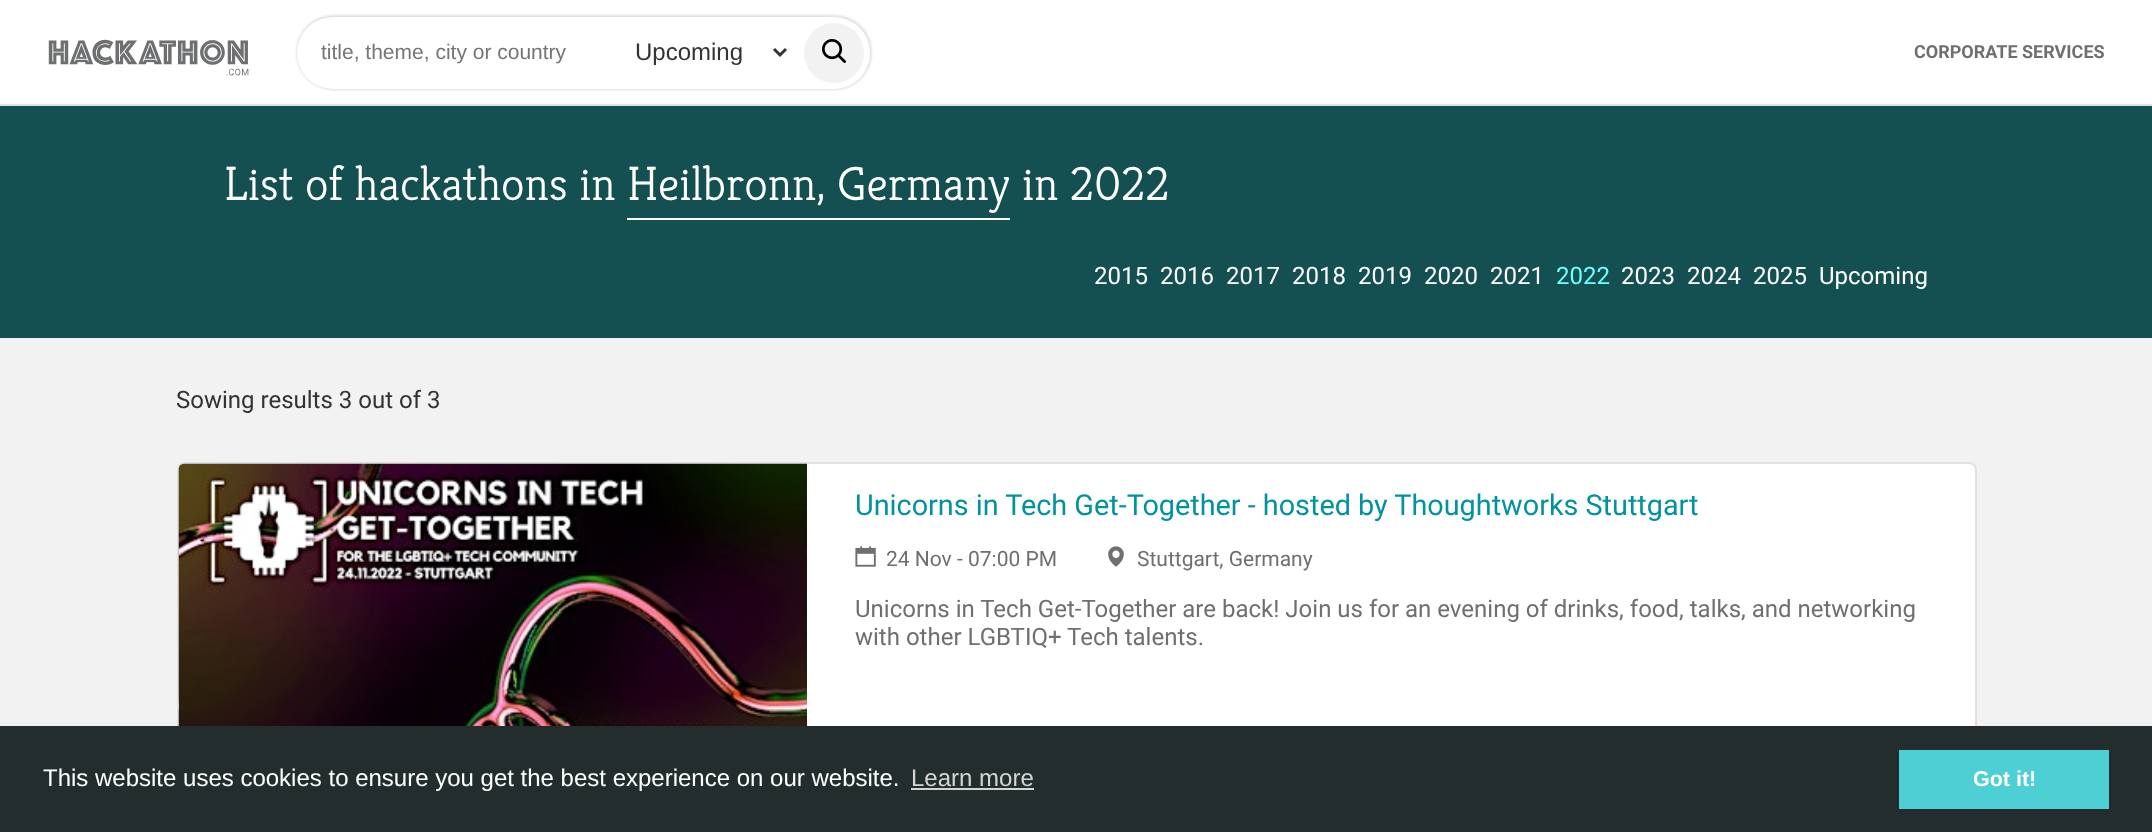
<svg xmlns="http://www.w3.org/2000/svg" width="2152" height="832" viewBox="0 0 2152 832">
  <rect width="100%" height="100%" fill="#fff"/>
  <path d="M0 104h2152v2H0z" fill="#e2e0e0"/>
  <image x="48" y="39" width="201" height="37" href="img/1.png"/>
  <rect x="296" y="15" width="576" height="75" rx="37.5" fill="#e2e0e0" filter="blur(1px)"/>
  <rect x="297" y="17" width="573" height="72" rx="36" fill="#fff"/>
  <path d="M774 49L780 55L786 49" fill="none" stroke="#333" stroke-width="3"/>
  <circle cx="834" cy="53" r="30" fill="#f2f2f2"/>
  <image x="822" y="39" width="24" height="24" href="img/2.png"/>
  <path d="M0 338h2152v388H0z" fill="#f2f2f2"/>
  <path d="M0 106h2152v232H0z" fill="#145052"/>
  <path d="M627 218h383v2H627z" fill="#fff"/>
  <rect x="178" y="463" width="1798" height="298" rx="7" fill="#fff" stroke="#e2e0e0" stroke-width="2"/>
  <image x="178" y="463" width="629" height="263" href="img/3.png"/>
  <image x="855" y="546" width="21" height="21" href="img/4.png"/>
  <image x="1108" y="546" width="16" height="21" href="img/5.png"/>
  <path d="M0 726h2152v106H0z" fill="#242d2d"/>
  <path d="M911 788h123v2H911z" fill="#d3d5d5"/>
  <path d="M1899 750h210v59H1899z" fill="#4dcfd3"/>
  <text x="321" y="59" font-family="Liberation Sans" font-size="21" fill="#757575">title, theme, city or country</text>
  <text x="635" y="60" font-family="Liberation Sans" font-size="24" fill="#333">Upcoming</text>
  <text x="1914" y="58" font-family="Roboto" font-size="18" font-weight="bold" fill="#6d6f71">CORPORATE SERVICES</text>
  <g font-family="Kreon" font-size="48" font-weight="300" fill="#fff">
    <text x="224" y="200">List of hackathons in Heilbronn, Germany</text>
    <text x="1022" y="200">in 2022</text>
  </g>
  <g font-family="Roboto" font-size="24" fill="#fff">
    <text x="1094" y="284">2015</text>
    <text x="1160" y="284">2016</text>
    <text x="1226" y="284">2017</text>
    <text x="1292" y="284">2018</text>
    <text x="1358" y="284">2019</text>
    <text x="1424" y="284">2020</text>
    <text x="1490" y="284">2021</text>
  </g>
  <text x="1556" y="284" font-family="Roboto" font-size="24" fill="#6cffff">2022</text>
  <g font-family="Roboto" font-size="24" fill="#fff">
    <text x="1621" y="284">2023</text>
    <text x="1687" y="284">2024</text>
    <text x="1753" y="284">2025</text>
    <text x="1819" y="284">Upcoming</text>
  </g>
  <text x="176" y="408" font-family="Roboto" font-size="24" fill="#333">Sowing results 3 out of 3</text>
  <text x="855" y="515" font-family="Roboto" font-size="28.8" fill="#00939e">Unicorns in Tech Get-Together - hosted by Thoughtworks Stuttgart</text>
  <g font-family="Roboto" font-size="21" fill="#6d6f71">
    <text x="886" y="566">24 Nov - 07:00 PM</text>
    <text x="1137" y="566">Stuttgart, Germany</text>
  </g>
  <g font-family="Roboto" font-size="24" fill="#6d6f71">
    <text x="855" y="617">Unicorns in Tech Get-Together are back! Join us for an evening of drinks, food, talks, and networking</text>
    <text x="855" y="645">with other LGBTIQ+ Tech talents.</text>
  </g>
  <text x="43" y="786" font-family="Liberation Sans" font-size="24" fill="#fff">This website uses cookies to ensure you get the best experience on our website.</text>
  <text x="911" y="786" font-family="Liberation Sans" font-size="24" fill="#d3d5d5">Learn more</text>
  <text x="1973" y="786" font-family="Liberation Sans" font-size="21.5" font-weight="bold" fill="#fff">Got it!</text>
</svg>
